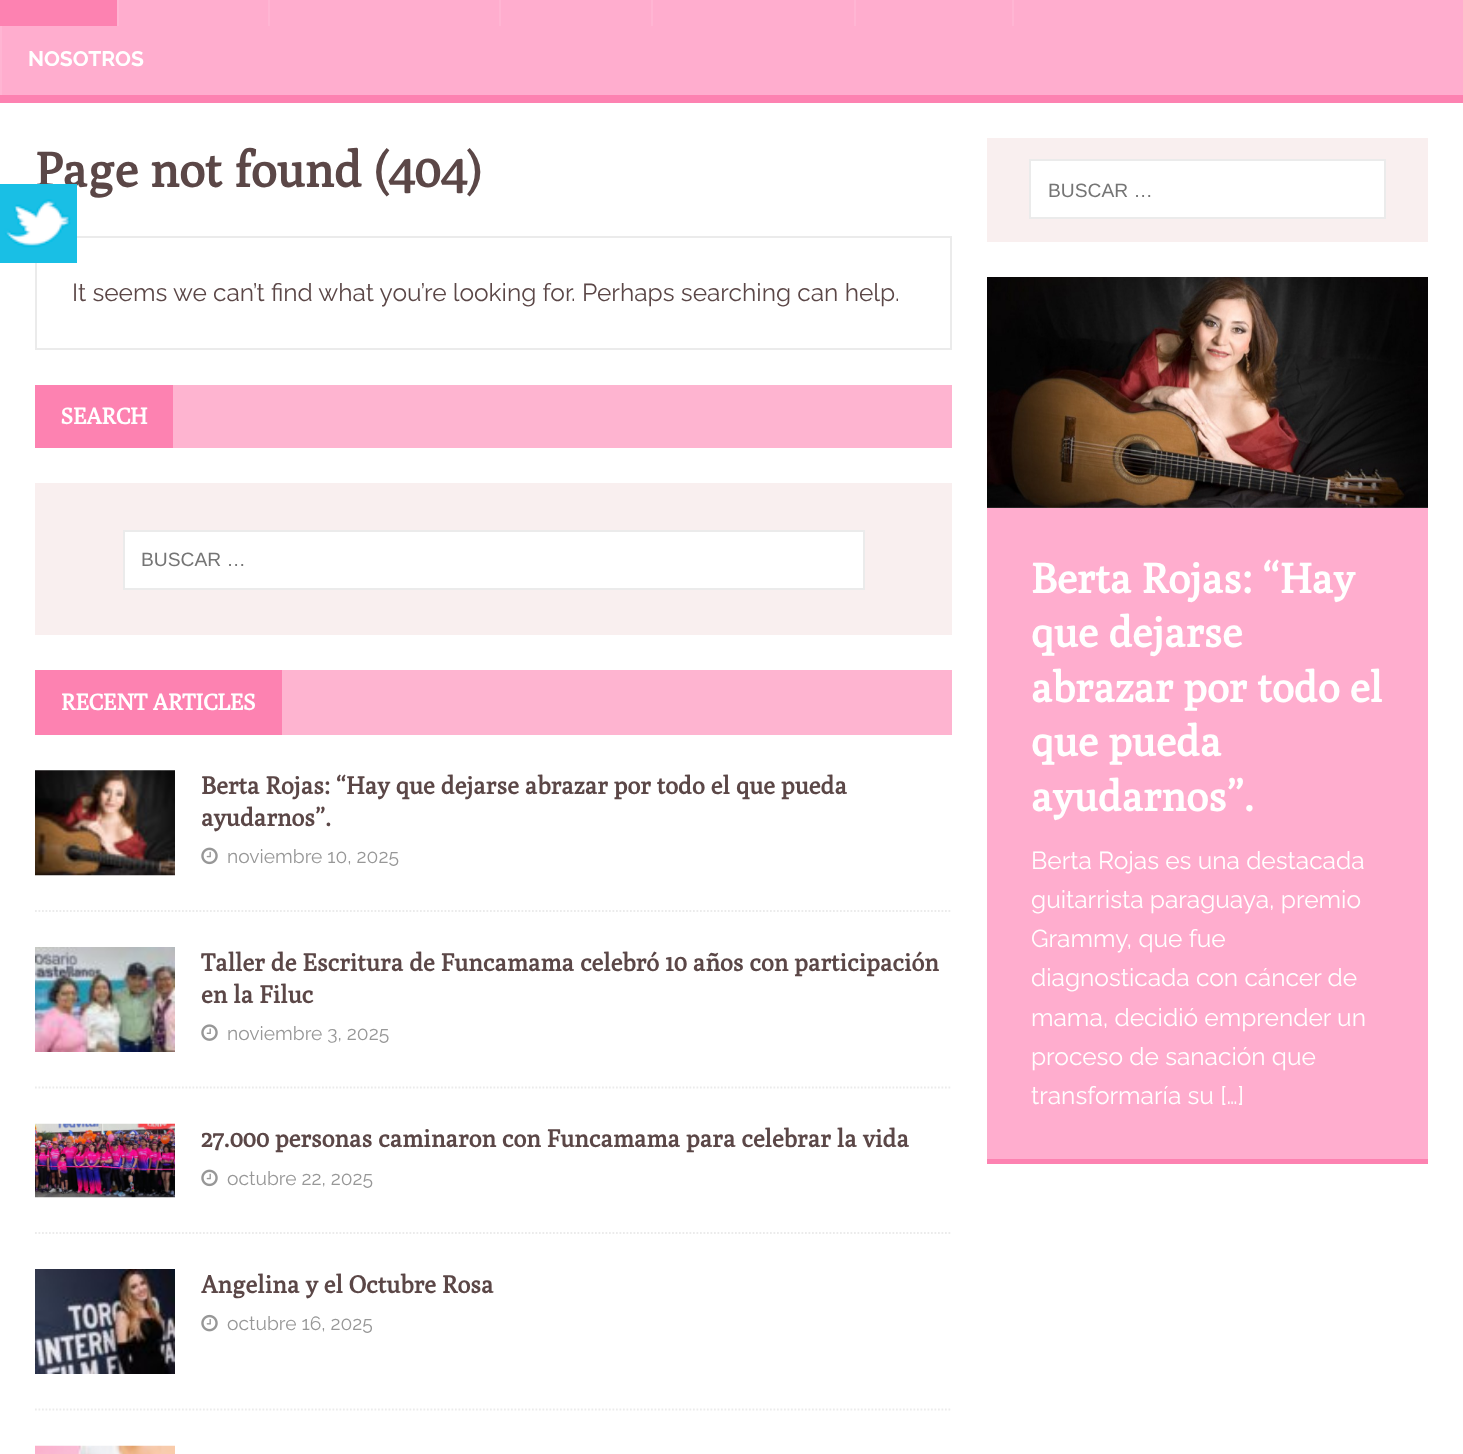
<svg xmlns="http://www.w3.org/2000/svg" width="1463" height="1454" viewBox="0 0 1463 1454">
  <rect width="100%" height="100%" fill="#fff"/>
  <path d="M2 0h1461v95H2z" fill="#ffadce"/>
  <path d="M0 95h1463v8H0z" fill="#fd82b1"/>
  <path d="M0 0h117v26H0z" fill="#fd82b1"/>
  <path d="M117 0h2v26H117z" fill="#ffb5d3"/>
  <path d="M268 0h2v26H268z" fill="#ffb5d3"/>
  <path d="M499 0h2v26H499z" fill="#ffb5d3"/>
  <path d="M651 0h2v26H651z" fill="#ffb5d3"/>
  <path d="M854 0h2v26H854z" fill="#ffb5d3"/>
  <path d="M1012 0h2v26H1012z" fill="#ffb5d3"/>
  <path d="M0 26h2v69H0z" fill="#ffb5d3"/>
  <path d="M36 237h915v112H36z" fill="none" stroke="#ebebeb" stroke-width="2"/>
  <path d="M173 385h779v63H173z" fill="#feb4d0"/>
  <path d="M35 385h138v63H35z" fill="#fd82b1"/>
  <path d="M35 483h917v152H35z" fill="#f9efef"/>
  <path d="M124 531h740v58H124z" fill="#fff" stroke="#ebebeb" stroke-width="2"/>
  <path d="M282 670h670v65H282z" fill="#feb4d0"/>
  <path d="M35 670h247v65H35z" fill="#fd82b1"/>
  <path d="M35 911H952" fill="none" stroke="#ebebeb" stroke-width="1.8" stroke-dasharray="1.75 1.75"/>
  <image x="35" y="770" width="140" height="106" href="img/1.png"/>
  <image x="201" y="847" width="17" height="18" href="img/2.png"/>
  <path d="M35 1087.5H952" fill="none" stroke="#ebebeb" stroke-width="1.8" stroke-dasharray="1.75 1.75"/>
  <image x="35" y="947" width="140" height="105" href="img/3.png"/>
  <image x="201" y="1024" width="17" height="17" href="img/4.png"/>
  <path d="M35 1233H952" fill="none" stroke="#ebebeb" stroke-width="1.8" stroke-dasharray="1.75 1.75"/>
  <image x="35" y="1123" width="140" height="75" href="img/5.png"/>
  <image x="201" y="1169" width="17" height="18" href="img/2.png"/>
  <path d="M35 1409.5H952" fill="none" stroke="#ebebeb" stroke-width="1.8" stroke-dasharray="1.75 1.75"/>
  <image x="35" y="1269" width="140" height="105" href="img/6.png"/>
  <image x="201" y="1314" width="17" height="18" href="img/7.png"/>
  <image x="35" y="1445" width="140" height="9" href="img/8.png"/>
  <path d="M987 138h441v104H987z" fill="#f9efef"/>
  <path d="M1030 160h355v58H1030z" fill="#fff" stroke="#ebebeb" stroke-width="2"/>
  <image x="987" y="277" width="441" height="231" href="img/9.png"/>
  <path d="M987 508h441v651H987z" fill="#ffadce"/>
  <path d="M987 1159h441v5H987z" fill="#fd82b1"/>
  <text x="28" y="66" font-family="Raleway" font-size="21" font-weight="bold" fill="#fff">NOSOTROS</text>
  <text x="35" y="187" font-family="Poly" font-size="49" font-weight="bold" fill="#5b4747">Page not found (404)</text>
  <text x="72" y="301" font-family="Raleway" font-size="24.5" fill="#5b4747">It seems we can’t find what you’re looking for. Perhaps searching can help.</text>
  <text x="61" y="424" font-family="Poly" font-size="22.75" font-weight="bold" fill="#fff">SEARCH</text>
  <text x="141" y="566" font-family="Liberation Sans" font-size="19.25" fill="#757575">BUSCAR …</text>
  <text x="61" y="710" font-family="Poly" font-size="22.75" font-weight="bold" fill="#fff">RECENT ARTICLES</text>
  <g font-family="Poly" font-size="24.5" font-weight="bold" fill="#5b4747">
    <text x="201" y="794">Berta Rojas: “Hay que dejarse abrazar por todo el que pueda</text>
    <text x="201" y="826">ayudarnos”.</text>
  </g>
  <text x="227" y="863" font-family="Raleway" font-size="19.25" fill="#979797">noviembre 10, 2025</text>
  <g font-family="Poly" font-size="24.5" font-weight="bold" fill="#5b4747">
    <text x="201" y="971">Taller de Escritura de Funcamama celebró 10 años con participación</text>
    <text x="201" y="1003">en la Filuc</text>
  </g>
  <text x="227" y="1040" font-family="Raleway" font-size="19.25" fill="#979797">noviembre 3, 2025</text>
  <text x="201" y="1147" font-family="Poly" font-size="24.5" font-weight="bold" fill="#5b4747">27.000 personas caminaron con Funcamama para celebrar la vida</text>
  <text x="227" y="1185" font-family="Raleway" font-size="19.25" fill="#979797">octubre 22, 2025</text>
  <text x="201" y="1293" font-family="Poly" font-size="24.5" font-weight="bold" fill="#5b4747">Angelina y el Octubre Rosa</text>
  <text x="227" y="1330" font-family="Raleway" font-size="19.25" fill="#979797">octubre 16, 2025</text>
  <text x="1048" y="197" font-family="Liberation Sans" font-size="19.25" fill="#757575">BUSCAR …</text>
  <g font-family="Poly" font-size="42" font-weight="bold" fill="#fff">
    <text x="1031" y="593">Berta Rojas: “Hay</text>
    <text x="1031" y="647">que dejarse</text>
    <text x="1031" y="702">abrazar por todo el</text>
    <text x="1031" y="756">que pueda</text>
    <text x="1031" y="811">ayudarnos”.</text>
  </g>
  <g font-family="Raleway" font-size="24.5" fill="#fff">
    <text x="1031" y="869">Berta Rojas es una destacada</text>
    <text x="1031" y="908">guitarrista paraguaya, premio</text>
    <text x="1031" y="947">Grammy, que fue</text>
    <text x="1031" y="986">diagnosticada con cáncer de</text>
    <text x="1031" y="1026">mama, decidió emprender un</text>
    <text x="1031" y="1065">proceso de sanación que</text>
    <text x="1031" y="1104">transformaría su […]</text>
  </g>
  <image x="0" y="184" width="77" height="79" href="img/10.png"/>
</svg>
